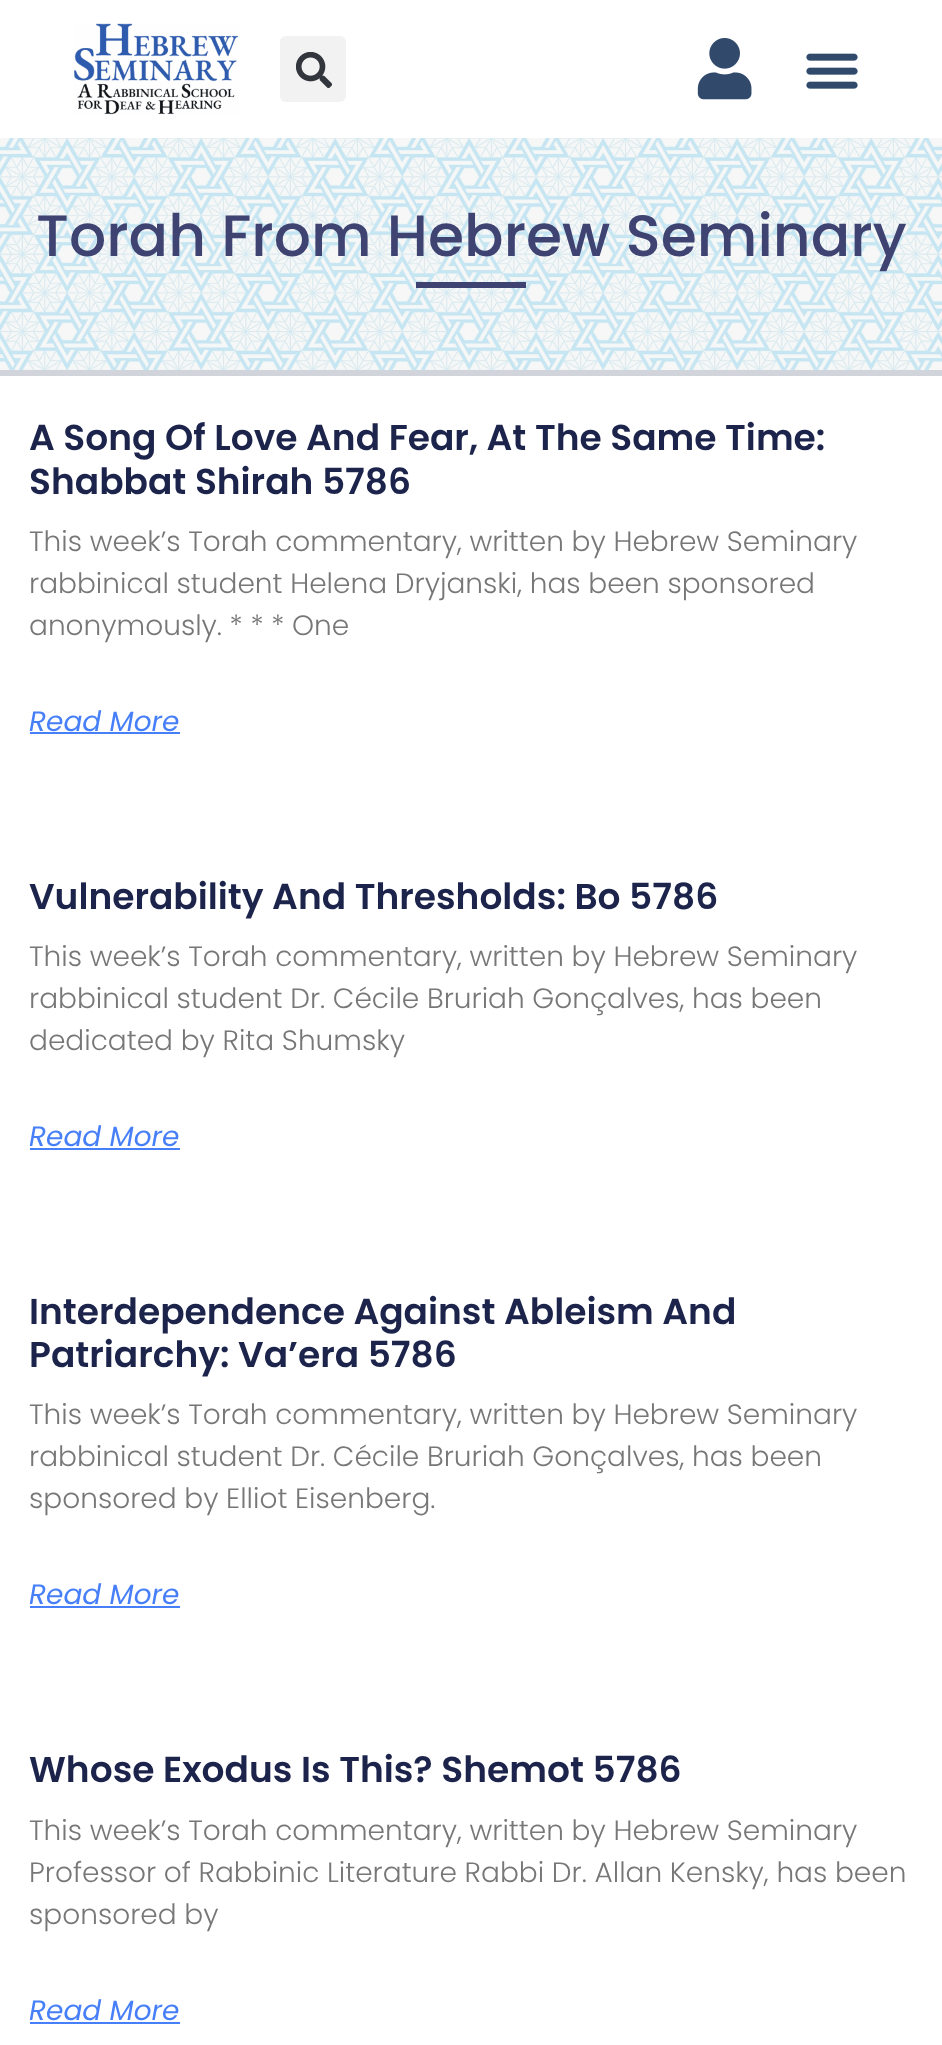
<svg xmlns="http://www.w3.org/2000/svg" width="942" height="2045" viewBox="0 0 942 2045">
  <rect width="100%" height="100%" fill="#fff"/>
  <image x="74" y="23" width="165" height="92" href="img/1.png"/>
  <rect x="280" y="36" width="66" height="66" rx="6" fill="#f2f2f2"/>
  <image x="296" y="52" width="36" height="36" href="img/2.png"/>
  <image x="697" y="38" width="55" height="62" href="img/3.png"/>
  <image x="806" y="53" width="52" height="36" href="img/4.png"/>
  <image x="0" y="138" width="942" height="232" href="img/5.png"/>
  <path d="M0 370h942v6H0z" fill="#d1d5db"/>
  <path d="M416 282h110v6H416z" fill="#3f4372"/>
  <path d="M30 732h150v2H30z" fill="#467ff7"/>
  <path d="M30 1148h150v2H30z" fill="#467ff7"/>
  <path d="M30 1606h150v2H30z" fill="#467ff7"/>
  <path d="M30 2022h150v2H30z" fill="#467ff7"/>
  <text x="36" y="256" font-family="Poppins" font-size="58.4" font-weight="500" fill="#3f4372">Torah From Hebrew Seminary</text>
  <g font-family="Poppins" font-size="36" font-weight="600" fill="#1c244b">
    <text x="29" y="450">A Song Of Love And Fear, At The Same Time:</text>
    <text x="29" y="494">Shabbat Shirah 5786</text>
  </g>
  <g font-family="Poppins" font-size="28" font-weight="300" fill="#777">
    <text x="29" y="551">This week’s Torah commentary, written by Hebrew Seminary</text>
    <text x="29" y="593">rabbinical student Helena Dryjanski, has been sponsored</text>
    <text x="29" y="635">anonymously. * * * One</text>
  </g>
  <text x="29" y="731" font-family="Poppins" font-size="28" font-style="italic" fill="#467ff7">Read More</text>
  <text x="29" y="909" font-family="Poppins" font-size="36" font-weight="600" fill="#1c244b">Vulnerability And Thresholds: Bo 5786</text>
  <g font-family="Poppins" font-size="28" font-weight="300" fill="#777">
    <text x="29" y="966">This week’s Torah commentary, written by Hebrew Seminary</text>
    <text x="29" y="1008">rabbinical student Dr. Cécile Bruriah Gonçalves, has been</text>
    <text x="29" y="1050">dedicated by Rita Shumsky</text>
  </g>
  <text x="29" y="1146" font-family="Poppins" font-size="28" font-style="italic" fill="#467ff7">Read More</text>
  <g font-family="Poppins" font-size="36" font-weight="600" fill="#1c244b">
    <text x="29" y="1324">Interdependence Against Ableism And</text>
    <text x="29" y="1367">Patriarchy: Va’era 5786</text>
  </g>
  <g font-family="Poppins" font-size="28" font-weight="300" fill="#777">
    <text x="29" y="1424">This week’s Torah commentary, written by Hebrew Seminary</text>
    <text x="29" y="1466">rabbinical student Dr. Cécile Bruriah Gonçalves, has been</text>
    <text x="29" y="1508">sponsored by Elliot Eisenberg.</text>
  </g>
  <text x="29" y="1604" font-family="Poppins" font-size="28" font-style="italic" fill="#467ff7">Read More</text>
  <text x="29" y="1782" font-family="Poppins" font-size="36" font-weight="600" fill="#1c244b">Whose Exodus Is This? Shemot 5786</text>
  <g font-family="Poppins" font-size="28" font-weight="300" fill="#777">
    <text x="29" y="1840">This week’s Torah commentary, written by Hebrew Seminary</text>
    <text x="29" y="1882">Professor of Rabbinic Literature Rabbi Dr. Allan Kensky, has been</text>
    <text x="29" y="1924">sponsored by</text>
  </g>
  <text x="29" y="2020" font-family="Poppins" font-size="28" font-style="italic" fill="#467ff7">Read More</text>
</svg>
